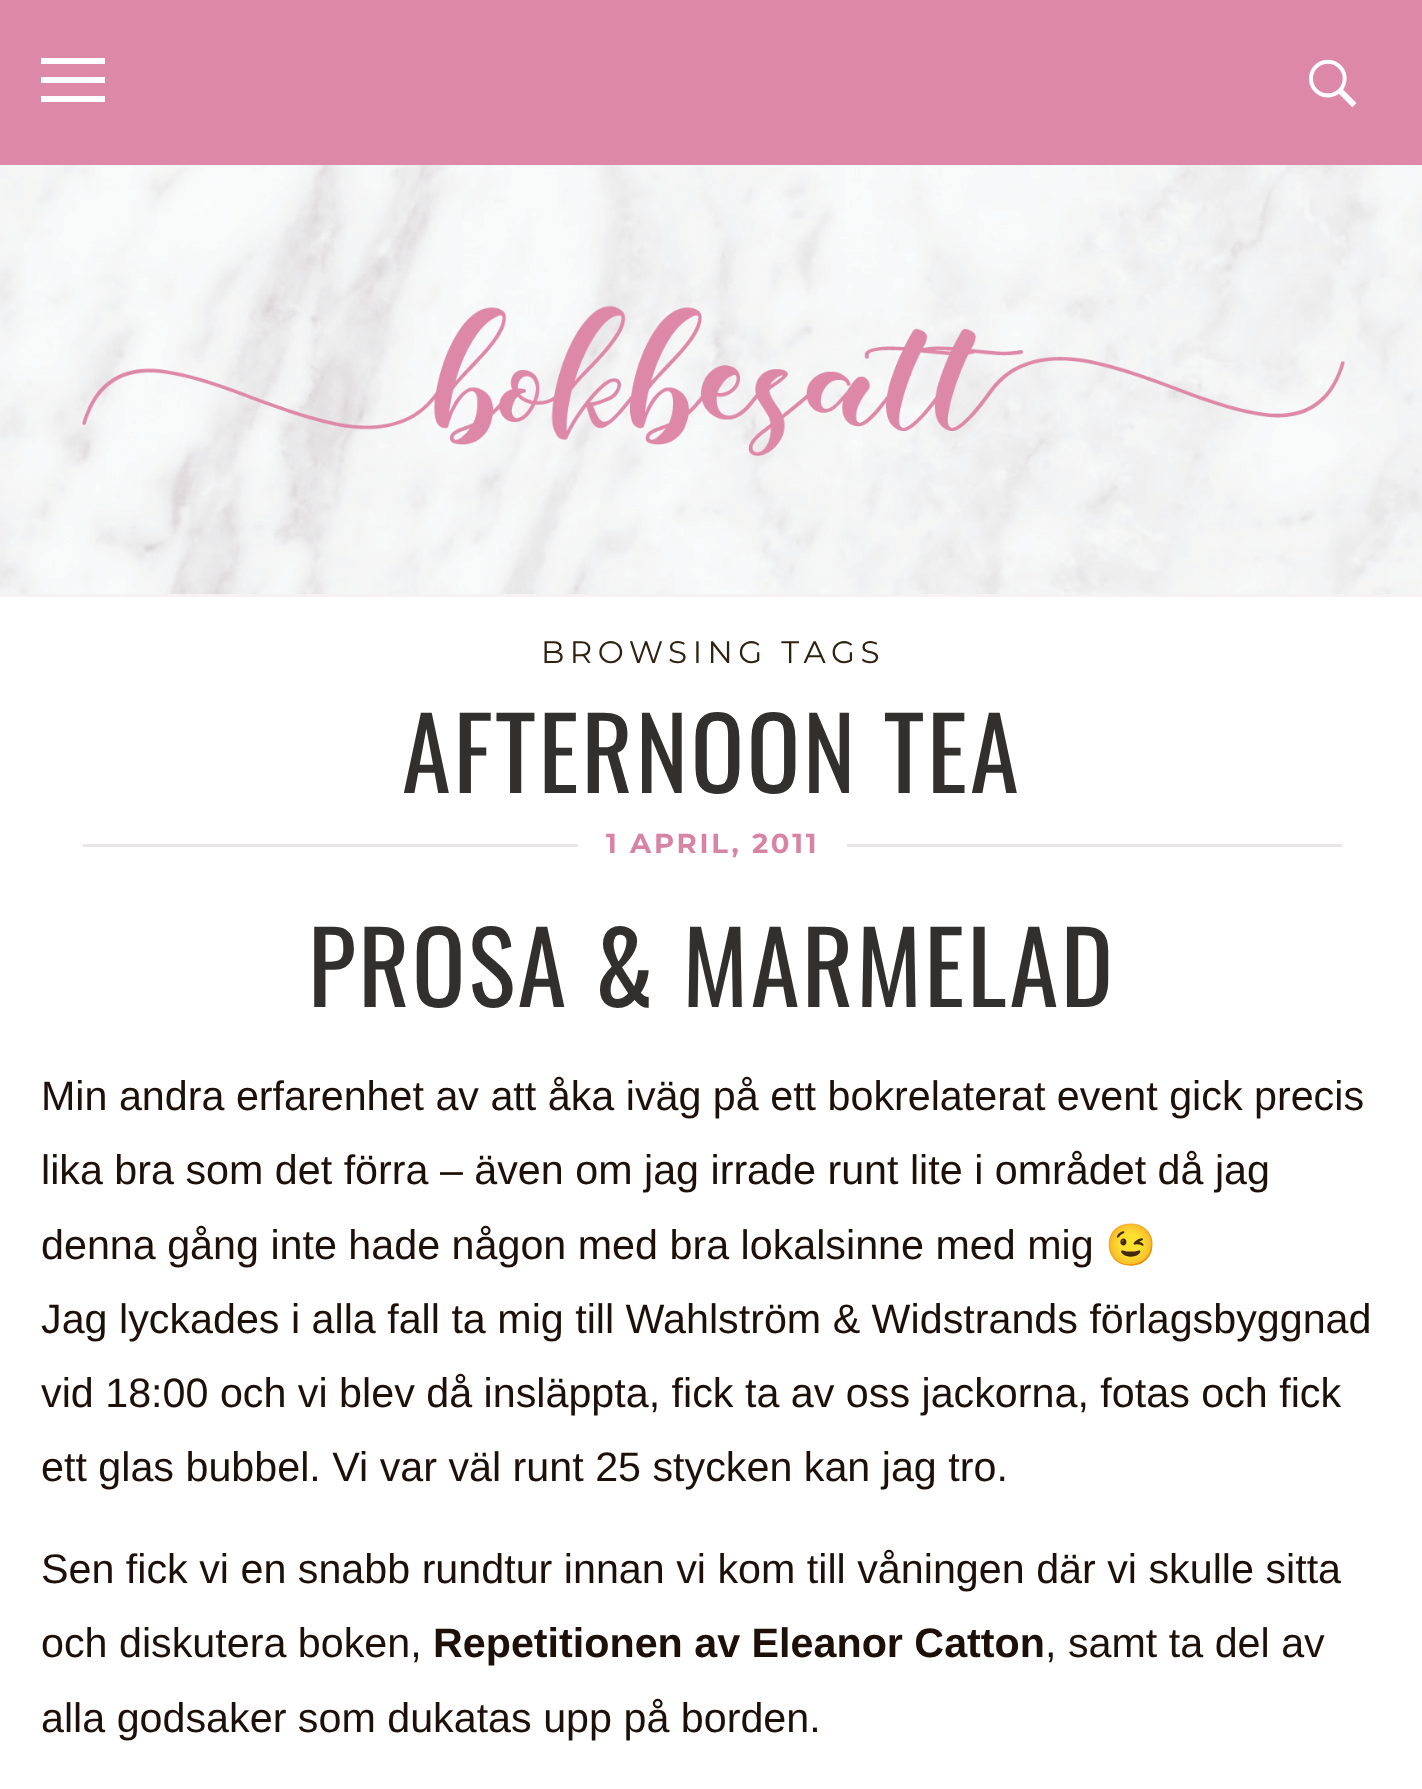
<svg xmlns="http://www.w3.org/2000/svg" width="1422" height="1789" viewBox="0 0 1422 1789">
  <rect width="100%" height="100%" fill="#fff"/>
  <path d="M0 0h1422v165H0z" fill="#dd88a7"/>
  <path d="M41 58h64v6H41z" fill="#fff"/>
  <path d="M41 77h64v6H41z" fill="#fff"/>
  <path d="M41 96h64v6H41z" fill="#fff"/>
  <image x="1309" y="59" width="48" height="49" href="img/1.png"/>
  <image x="0" y="165" width="1422" height="429" href="img/2.png"/>
  <path d="M0 594h1422v3H0z" fill="#f8f1f4"/>
  <image x="82" y="305" width="1263" height="151" href="img/3.png"/>
  <path d="M83 844h1259v3H83z" fill="#eae6e8"/>
  <path d="M578 844h269v3H578z" fill="#fff"/>
  <text x="541" y="663" font-family="Montserrat" font-size="31" letter-spacing="5.5" fill="#2e210f">BROWSING TAGS</text>
  <text x="402" y="793" font-family="Oswald" font-size="99" letter-spacing="2.75" fill="#31302e">AFTERNOON TEA</text>
  <text x="606" y="853" font-family="Montserrat" font-size="27.5" font-weight="bold" letter-spacing="2.75" fill="#d783a4">1 APRIL, 2011</text>
  <text x="308" y="1007" font-family="Oswald" font-size="99" letter-spacing="2.75" fill="#31302e">PROSA &amp; MARMELAD</text>
  <g font-family="Liberation Sans" font-size="41.25" fill="#1c1009">
    <text x="41" y="1110">Min andra erfarenhet av att åka iväg på ett bokrelaterat event gick precis</text>
    <text x="41" y="1184">lika bra som det förra – även om jag irrade runt lite i området då jag</text>
    <text x="41" y="1259">denna gång inte hade någon med bra lokalsinne med mig</text>
  </g>
  <text x="1105" y="1259" font-family="Noto Color Emoji" font-size="41.25" fill="#1c1009">😉</text>
  <g font-family="Liberation Sans" font-size="41.25" fill="#1c1009">
    <text x="41" y="1333">Jag lyckades i alla fall ta mig till Wahlström &amp; Widstrands förlagsbyggnad</text>
    <text x="41" y="1407">vid 18:00 och vi blev då insläppta, fick ta av oss jackorna, fotas och fick</text>
    <text x="41" y="1481">ett glas bubbel. Vi var väl runt 25 stycken kan jag tro.</text>
    <text x="41" y="1583">Sen fick vi en snabb rundtur innan vi kom till våningen där vi skulle sitta</text>
    <text x="41" y="1657">och diskutera boken,</text>
  </g>
  <text x="433" y="1657" font-family="Liberation Sans" font-size="41.25" font-weight="bold" fill="#1c1009">Repetitionen av Eleanor Catton</text>
  <g font-family="Liberation Sans" font-size="41.25" fill="#1c1009">
    <text x="1045" y="1657">, samt ta del av</text>
    <text x="41" y="1732">alla godsaker som dukatas upp på borden.</text>
  </g>
</svg>
